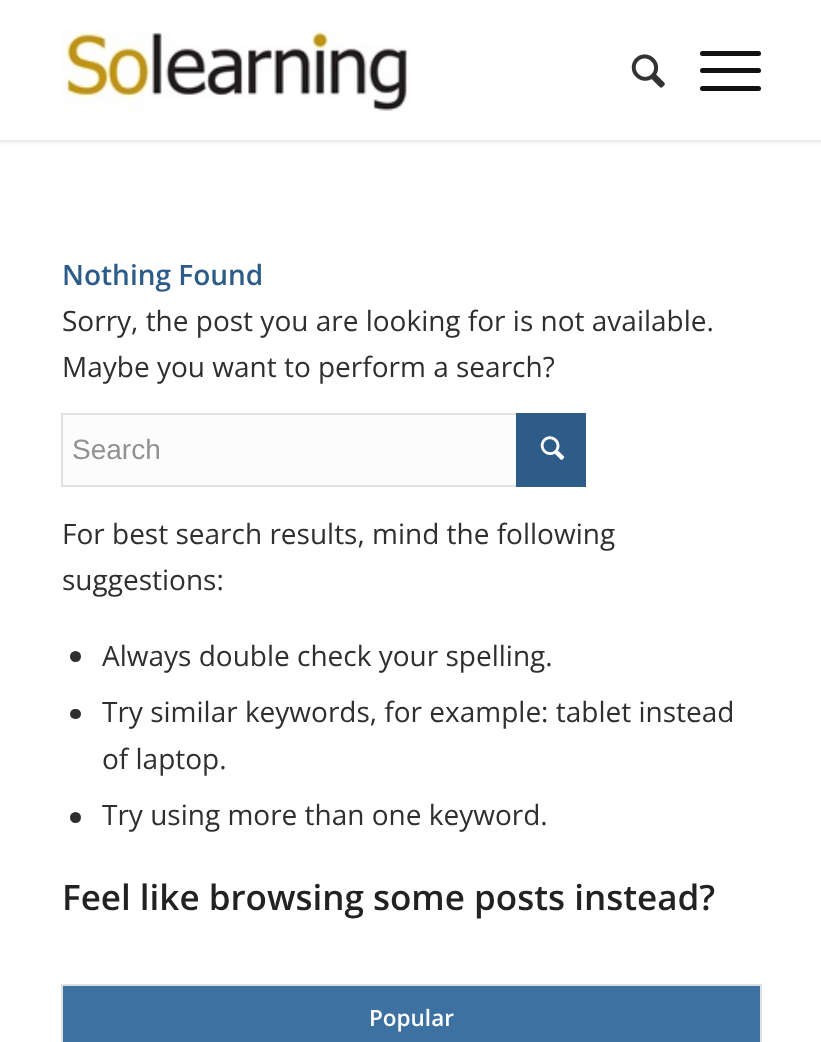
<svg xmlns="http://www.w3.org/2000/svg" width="821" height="1042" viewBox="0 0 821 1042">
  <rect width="100%" height="100%" fill="#fff"/>
  <path d="M-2 -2h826v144H-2z" fill="#0000001a" filter="blur(2px)"/>
  <path d="M0 0h821v140H0z" fill="#fff"/>
  <image x="61" y="30" width="350" height="82" href="img/1.png"/>
  <image x="631" y="54" width="34" height="34" href="img/2.png"/>
  <rect x="700" y="68" width="61" height="5" rx="2.5" fill="#121112"/>
  <rect x="700" y="51" width="61" height="5" rx="2.5" fill="#121112"/>
  <rect x="700" y="86" width="61" height="5" rx="2.5" fill="#121112"/>
  <path d="M63 415h453v70H63z" fill="#fcfcfc"/>
  <path d="M62 414h523v72H62z" fill="none" stroke="#e1e1e1" stroke-width="2"/>
  <path d="M516 413h70v74H516z" fill="#2d5c88"/>
  <image x="540" y="436" width="25" height="24" href="img/3.png"/>
  <circle cx="75.5" cy="656.5" r="5.5" fill="#302e30"/>
  <rect x="70" y="709" width="11" height="10" rx="5" fill="#302e30"/>
  <circle cx="75.5" cy="817.5" r="5.5" fill="#302e30"/>
  <path d="M760 984h2v58H760z" fill="#e1e1e1"/>
  <path d="M61 984h2v58H61z" fill="#e1e1e1"/>
  <path d="M63 986h697v56H63z" fill="#3d71a1"/>
  <path d="M63 984h697v2H63z" fill="#e1e1e1"/>
  <text x="62" y="285" font-family="Open Sans" font-size="28" font-weight="600" fill="#2d5c88">Nothing Found</text>
  <g font-family="Open Sans" font-size="28" fill="#302e30">
    <text x="62" y="331">Sorry, the post you are looking for is not available.</text>
    <text x="62" y="377">Maybe you want to perform a search?</text>
  </g>
  <text x="72" y="459" font-family="Liberation Sans" font-size="28" fill="#919191">Search</text>
  <g font-family="Open Sans" font-size="28" fill="#302e30">
    <text x="62" y="544">For best search results, mind the following</text>
    <text x="62" y="590">suggestions:</text>
    <text x="102" y="666">Always double check your spelling.</text>
    <text x="102" y="722">Try similar keywords, for example: tablet instead</text>
    <text x="102" y="769">of laptop.</text>
    <text x="102" y="825">Try using more than one keyword.</text>
  </g>
  <text x="62" y="910" font-family="Open Sans" font-size="35" font-weight="600" fill="#222">Feel like browsing some posts instead?</text>
  <text x="369" y="1026" font-family="Open Sans" font-size="22.5" font-weight="600" fill="#fff">Popular</text>
</svg>
